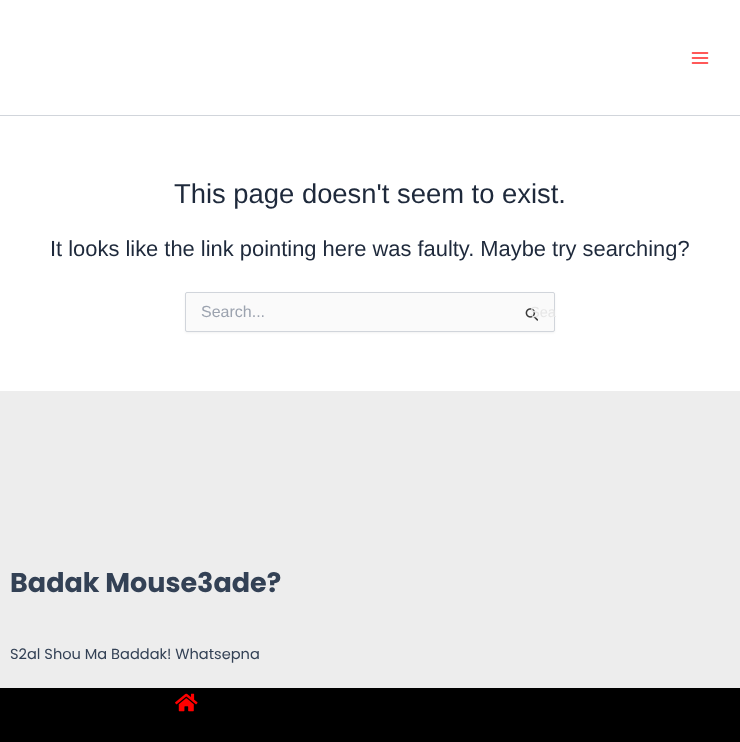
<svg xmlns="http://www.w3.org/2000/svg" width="740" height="742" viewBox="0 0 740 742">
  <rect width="100%" height="100%" fill="#fff"/>
  <path d="M0 115h740v1H0z" fill="#d1d5db"/>
  <image x="691" y="52" width="18" height="12" href="img/1.png"/>
  <rect x="185" y="293" width="370" height="40" rx="2" fill="#0000000d" filter="blur(1px)"/>
  <rect x="185.5" y="292.5" width="369" height="39" rx="1.5" fill="#fafafa" stroke="#d1d5db"/>
  <image x="525" y="308" width="13" height="13" href="img/2.png"/>
  <path d="M0 391h740v297H0z" fill="#ededed"/>
  <path d="M0 688h740v54H0z" fill="#000"/>
  <image x="175" y="693" width="23" height="19" href="img/3.png"/>
  <text x="174" y="203" font-family="Liberation Sans" font-size="27.4" fill="#1e293b">This page doesn't seem to exist.</text>
  <text x="50" y="256" font-family="Liberation Sans" font-size="21.9" fill="#1e293b">It looks like the link pointing here was faulty. Maybe try searching?</text>
  <text x="201" y="317" font-family="Liberation Sans" font-size="16" fill="#9ca3af">Search...</text>
  <text x="530" y="317" font-family="Liberation Sans" font-size="14.6" fill="#e6e6e6">Sea</text>
  <text x="10" y="592" font-family="Poppins" font-size="27" font-weight="bold" fill="#334155">Badak Mouse3ade?</text>
  <text x="10" y="659" font-family="Poppins" font-size="14.6" fill="#334155">S2al Shou Ma Baddak! Whatsepna</text>
</svg>
